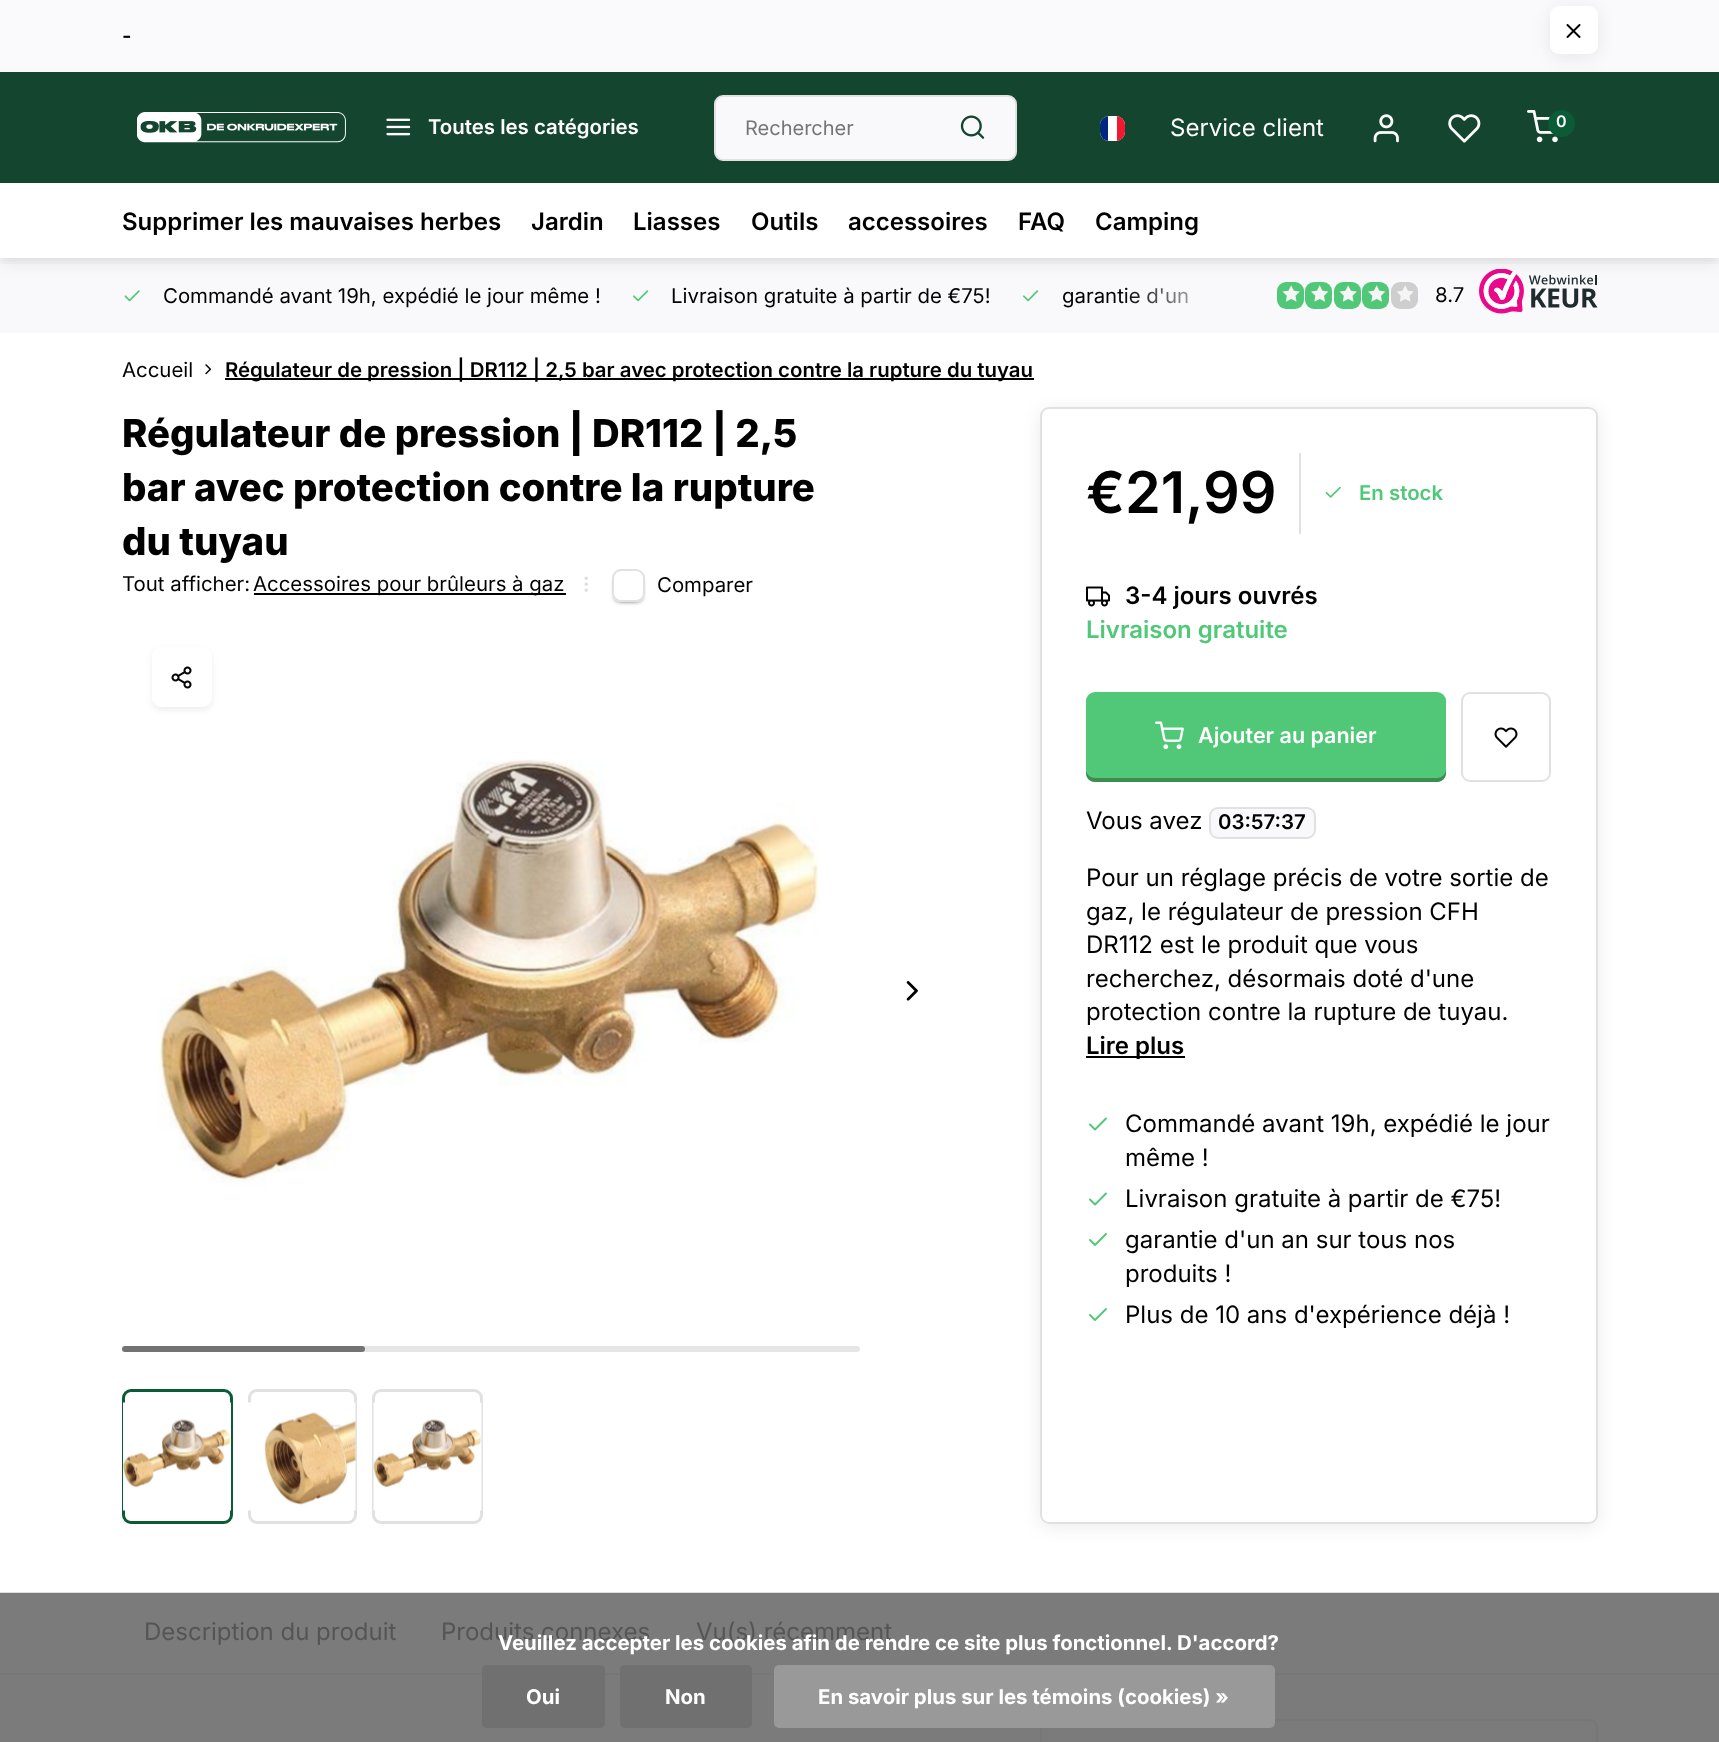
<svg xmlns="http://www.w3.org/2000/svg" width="1719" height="1742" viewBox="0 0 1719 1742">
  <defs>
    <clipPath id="clip1"><path d="M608 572H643V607H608ZM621 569H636C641 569 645 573 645 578V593C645 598 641 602 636 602H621C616 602 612 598 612 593V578C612 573 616 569 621 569Z" clip-rule="evenodd"/></clipPath>
    <clipPath id="clip2"><path d="M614 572H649V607H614ZM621 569H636C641 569 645 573 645 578V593C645 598 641 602 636 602H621C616 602 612 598 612 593V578C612 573 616 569 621 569Z" clip-rule="evenodd"/></clipPath>
    <clipPath id="clip3"><path d="M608 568H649V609H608ZM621 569H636C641 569 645 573 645 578V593C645 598 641 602 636 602H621C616 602 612 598 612 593V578C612 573 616 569 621 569Z" clip-rule="evenodd"/></clipPath>
    <clipPath id="clip4"><path d="M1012 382H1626V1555H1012ZM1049 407H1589C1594 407 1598 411 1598 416V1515C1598 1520 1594 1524 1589 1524H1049C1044 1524 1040 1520 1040 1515V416C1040 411 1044 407 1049 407Z" clip-rule="evenodd"/></clipPath>
    <linearGradient id="g1" gradientUnits="userSpaceOnUse" x1="1122" y1="296" x2="1232" y2="296"><stop offset="0" stop-color="#f9f9fb" stop-opacity="0"/><stop offset="1" stop-color="#f9f9fb"/></linearGradient>
    <clipPath id="clip5"><path d="M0 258h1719v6H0z"/></clipPath>
    <clipPath id="clip6"><rect x="1100" y="116" width="25" height="25" rx="9"/></clipPath>
  </defs>
  <rect width="100%" height="100%" fill="#fff"/>
  <path d="M0 1594h1719v148H0z" fill="#7b7b7b"/>
  <path d="M0 0h1719v72H0z" fill="#fafafc"/>
  <rect x="1550" y="9" width="48" height="48" rx="9" fill="#00000014" filter="blur(9px)"/>
  <rect x="1550" y="6" width="48" height="48" rx="9" fill="#fff"/>
  <image x="1566" y="24" width="15" height="14" href="img/1.png"/>
  <path d="M0 258h1719v75H0z" fill="#f9f9fb"/>
  <image x="124" y="290" width="16" height="12" href="img/8.png"/>
  <image x="633" y="290" width="16" height="12" href="img/9.png"/>
  <image x="1023" y="290" width="16" height="12" href="img/9.png"/>
  <rect x="1277" y="282" width="27" height="27" rx="9" fill="#50c878"/>
  <image x="1282" y="285" width="18" height="17" href="img/10.png"/>
  <rect x="1305" y="282" width="27" height="27" rx="9" fill="#50c878"/>
  <image x="1311" y="285" width="18" height="17" href="img/11.png"/>
  <rect x="1334" y="282" width="27" height="27" rx="9" fill="#50c878"/>
  <image x="1339" y="285" width="18" height="17" href="img/10.png"/>
  <rect x="1362" y="282" width="27" height="27" rx="9" fill="#50c878"/>
  <image x="1368" y="285" width="18" height="17" href="img/11.png"/>
  <rect x="1391" y="282" width="27" height="27" rx="9" fill="#cecece"/>
  <image x="1396" y="285" width="18" height="17" href="img/12.png"/>
  <image x="1479" y="269" width="119" height="45" href="img/13.png"/>
  <image x="205" y="364" width="6" height="11" href="img/14.png"/>
  <path d="M225 378h809v2H225z" fill="#000"/>
  <path d="M254 593h312v2H254z" fill="#000"/>
  <image x="584" y="576" width="4" height="16" href="img/15.png"/>
  <g clip-path="url(#clip1)">
    <rect x="615" y="579" width="21" height="21" rx="3" fill="#999" filter="blur(2px)"/>
  </g>
  <g clip-path="url(#clip2)">
    <rect x="621" y="579" width="21" height="21" rx="3" fill="#999" filter="blur(2px)"/>
  </g>
  <g clip-path="url(#clip3)">
    <rect x="615" y="575" width="27" height="27" rx="6" fill="#999" filter="blur(2px)"/>
  </g>
  <rect x="613" y="570" width="31" height="31" rx="8" fill="none" stroke="#e1e1e1" stroke-width="2"/>
  <rect x="152" y="650" width="60" height="60" rx="9" fill="#00000012" filter="blur(3px)"/>
  <rect x="152" y="647" width="60" height="60" rx="9" fill="#fff"/>
  <image x="171" y="666" width="21" height="23" href="img/16.png"/>
  <image x="158" y="759" width="661" height="429" href="img/17.png"/>
  <image x="906" y="981" width="12" height="20" href="img/18.png"/>
  <rect x="122" y="1346" width="738" height="6" rx="3" fill="#e6e6e6"/>
  <rect x="122" y="1346" width="243" height="6" rx="3" fill="#00000080"/>
  <rect x="123.5" y="1390.5" width="108" height="132" rx="7.5" fill="none" stroke="#0a5c36" stroke-width="3"/>
  <image x="123" y="1402" width="108" height="109" href="img/19.png"/>
  <rect x="249.5" y="1390.5" width="106" height="132" rx="7.5" fill="none" stroke="#e1e1e1" stroke-width="3"/>
  <image x="248" y="1402" width="108" height="109" href="img/20.png"/>
  <rect x="373.5" y="1390.5" width="108" height="132" rx="7.5" fill="none" stroke="#e1e1e1" stroke-width="3"/>
  <image x="373" y="1402" width="109" height="109" href="img/21.png"/>
  <g clip-path="url(#clip4)">
    <rect x="1040" y="410" width="558" height="1117" rx="9" fill="#00000014" filter="blur(9px)"/>
  </g>
  <rect x="1041" y="408" width="556" height="1115" rx="8" fill="none" stroke="#e1e1e1" stroke-width="2"/>
  <path d="M1299 453h2v81H1299z" fill="#e1e1e1"/>
  <image x="1325" y="486" width="16" height="12" href="img/22.png"/>
  <image x="1086" y="586" width="24" height="21" href="img/23.png"/>
  <rect x="1086" y="692" width="360" height="90" rx="9" fill="#50c878"/>
  <path d="M1086 770V773C1086 778 1090 782 1095 782H1437C1442 782 1446 778 1446 773V770C1446 774 1442 778 1437 778H1095C1090 778 1086 774 1086 770Z" fill="#3f8d4e"/>
  <image x="1155" y="721" width="29" height="29" href="img/24.png"/>
  <rect x="1462" y="693" width="88" height="88" rx="8" fill="none" stroke="#e1e1e1" stroke-width="2"/>
  <image x="1494" y="727" width="24" height="21" href="img/25.png"/>
  <rect x="1210" y="808" width="105" height="30" rx="8" fill="#f9f9fb" stroke="#e1e1e1" stroke-width="2"/>
  <path d="M1086 1056h99v2H1086z" fill="#000"/>
  <image x="1089" y="1117" width="18" height="14" href="img/26.png"/>
  <image x="1089" y="1192" width="18" height="14" href="img/26.png"/>
  <image x="1089" y="1233" width="18" height="13" href="img/27.png"/>
  <image x="1089" y="1308" width="18" height="13" href="img/27.png"/>
  <path d="M0 1592h1719v1H0z" fill="#e1e1e1"/>
  <path d="M0 1593h1719v1H0z" fill="#777"/>
  <path d="M0 1673h1719v2H0z" fill="#777"/>
  <rect x="1041" y="1720" width="556" height="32" rx="8" fill="none" stroke="#777" stroke-width="2"/>
  <rect x="482" y="1665" width="123" height="63" rx="5" fill="#707070"/>
  <rect x="620" y="1665" width="132" height="63" rx="5" fill="#707070"/>
  <rect x="774" y="1665" width="501" height="63" rx="5" fill="#999"/>
  <text x="122" y="43" font-family="Inter" font-size="20.4" font-weight="600" fill="#000">-</text>
  <g font-family="Inter" font-size="20.4" fill="#000">
    <text x="163" y="303">Commandé avant 19h, expédié le jour même !</text>
    <text x="671" y="303">Livraison gratuite à partir de €75!</text>
    <text x="1062" y="303">garantie d'un</text>
  </g>
  <path d="M1125 287h63v17H1125z" fill="url(#g1)"/>
  <path d="M0 80h1719v186H0z" fill="#0000000d" filter="blur(7.5px)"/>
  <path d="M0 72h1719v111H0z" fill="#14452f"/>
  <g clip-path="url(#clip5)">
    <path d="M0 77h1719v186H0z" fill="#0000000d" filter="blur(3px)"/>
  </g>
  <path d="M0 183h1719v75H0z" fill="#fff"/>
  <g font-family="Inter" font-size="24" font-weight="600" fill="#000">
    <text x="1095" y="230">Camping</text>
    <text x="1018" y="230">FAQ</text>
    <text x="848" y="230">accessoires</text>
    <text x="751" y="230">Outils</text>
    <text x="633" y="230">Liasses</text>
    <text x="531" y="230">Jardin</text>
    <text x="122" y="230">Supprimer les mauvaises herbes</text>
  </g>
  <image x="1527" y="110" width="31" height="33" href="img/7.png"/>
  <circle cx="1561.5" cy="123.5" r="13.5" fill="#0a5c36"/>
  <text x="1556" y="127" font-family="Inter" font-size="16" font-weight="600" fill="#fff">0</text>
  <rect x="1100" y="116" width="25" height="25" rx="9" fill="#fff"/>
  <g clip-path="url(#clip6)">
    <path d="M1117 116h8v25H1117z" fill="#f31830"/>
    <path d="M1100 116h8v25H1100z" fill="#00267f"/>
  </g>
  <rect x="715" y="96" width="301" height="64" rx="8" fill="#f9f9fb" stroke="#e1e1e1" stroke-width="2"/>
  <image x="960" y="115" width="25" height="24" href="img/4.png"/>
  <text x="745" y="135" font-family="Inter" font-size="20" fill="#757575">Rechercher</text>
  <image x="1448" y="114" width="33" height="29" href="img/6.png"/>
  <image x="1373" y="114" width="26" height="29" href="img/5.png"/>
  <text x="1170" y="136" font-family="Inter" font-size="24" fill="#fff">Service client</text>
  <text x="428" y="134" font-family="Inter" font-size="20.4" font-weight="600" fill="#fff">Toutes les catégories</text>
  <image x="386" y="118" width="25" height="18" href="img/3.png"/>
  <image x="137" y="112" width="209" height="31" href="img/2.png"/>
  <g font-family="Inter" font-size="20.4" fill="#000">
    <text x="1435" y="302">8.7</text>
    <text x="122" y="377">Accueil</text>
  </g>
  <text x="225" y="377" font-family="Inter" font-size="20.4" font-weight="600" fill="#000">Régulateur de pression | DR112 | 2,5 bar avec protection contre la rupture du tuyau</text>
  <g font-family="Inter" font-size="38.4" font-weight="800" fill="#000">
    <text x="122" y="447">Régulateur de pression | DR112 | 2,5</text>
    <text x="122" y="501">bar avec protection contre la rupture</text>
    <text x="122" y="555">du tuyau</text>
  </g>
  <g font-family="Inter" font-size="20.4" fill="#000">
    <text x="122" y="591">Tout afficher:</text>
    <text x="253" y="591">Accessoires pour brûleurs à gaz</text>
    <text x="657" y="592">Comparer</text>
  </g>
  <text x="1086" y="513" font-family="Inter" font-size="57.5" font-weight="600" fill="#000">€21,99</text>
  <text x="1359" y="500" font-family="Inter" font-size="20.4" font-weight="600" fill="#50c878">En stock</text>
  <text x="1125" y="604" font-family="Inter" font-size="24" font-weight="600" fill="#000">3-4 jours ouvrés</text>
  <text x="1086" y="638" font-family="Inter" font-size="24" font-weight="600" fill="#50c878">Livraison gratuite</text>
  <text x="1198" y="743" font-family="Inter" font-size="21.5" font-weight="600" fill="#fff">Ajouter au panier</text>
  <text x="1086" y="829" font-family="Inter" font-size="24" fill="#000">Vous avez</text>
  <text x="1218" y="829" font-family="Inter" font-size="20.4" font-weight="600" fill="#000">03:57:37</text>
  <g font-family="Inter" font-size="24" fill="#000">
    <text x="1086" y="886">Pour un réglage précis de votre sortie de</text>
    <text x="1086" y="920">gaz, le régulateur de pression CFH</text>
    <text x="1086" y="953">DR112 est le produit que vous</text>
    <text x="1086" y="987">recherchez, désormais doté d'une</text>
    <text x="1086" y="1020">protection contre la rupture de tuyau.</text>
  </g>
  <text x="1086" y="1054" font-family="Inter" font-size="24" font-weight="600" fill="#000">Lire plus</text>
  <g font-family="Inter" font-size="24" fill="#000">
    <text x="1125" y="1132">Commandé avant 19h, expédié le jour</text>
    <text x="1125" y="1166">même !</text>
    <text x="1125" y="1207">Livraison gratuite à partir de €75!</text>
    <text x="1125" y="1248">garantie d'un an sur tous nos</text>
    <text x="1125" y="1282">produits !</text>
    <text x="1125" y="1323">Plus de 10 ans d'expérience déjà !</text>
  </g>
  <g font-family="Inter" font-size="24" fill="#555">
    <text x="144" y="1640">Description du produit</text>
    <text x="441" y="1640">Produits connexes</text>
    <text x="696" y="1640">Vu(s) récemment</text>
  </g>
  <g font-family="Inter" font-size="20.4" font-weight="bold" fill="#fff">
    <text x="498" y="1650">Veuillez accepter les cookies afin de rendre ce site plus fonctionnel. D'accord?</text>
    <text x="526" y="1704">Oui</text>
    <text x="665" y="1704">Non</text>
    <text x="818" y="1704">En savoir plus sur les témoins (cookies) »</text>
  </g>
</svg>
